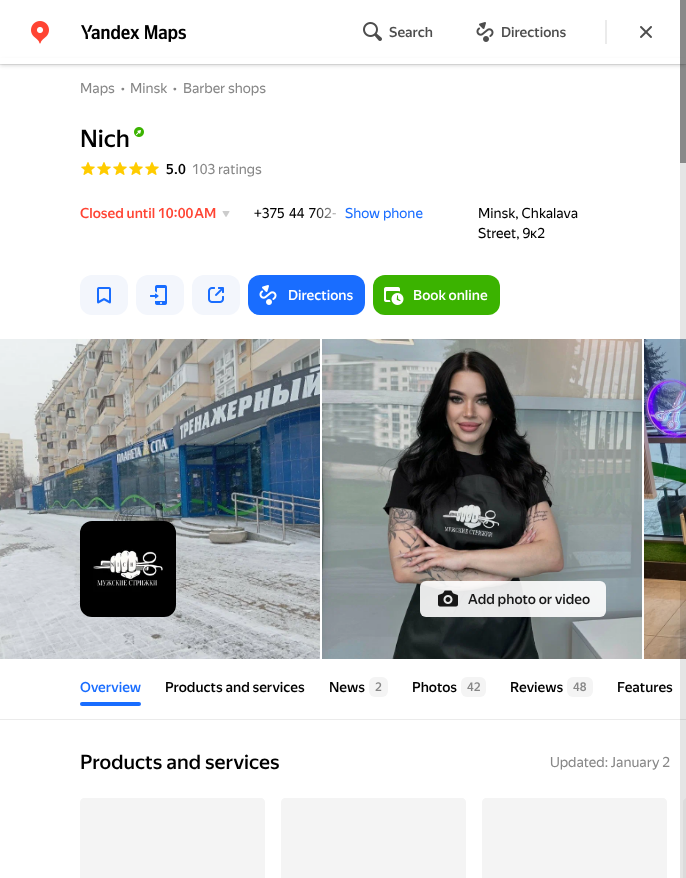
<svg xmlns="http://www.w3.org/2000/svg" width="686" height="878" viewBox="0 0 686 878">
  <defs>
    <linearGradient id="g1" gradientUnits="userSpaceOnUse" x1="313" y1="213" x2="345" y2="213"><stop offset="0" stop-color="#fff" stop-opacity="0"/><stop offset="1" stop-color="#fff"/></linearGradient>
  </defs>
  <rect width="100%" height="100%" fill="#fff"/>
  <path d="M0 64h686v1H0z" fill="#ebebeb"/>
  <path d="M0 61h686v4H0z" fill="#00000033" filter="blur(2px)"/>
  <path d="M0 58h686v6H0z" fill="#fff"/>
  <image x="31" y="21" width="18" height="23" href="img/1.png"/>
  <image x="81" y="25" width="105" height="17" href="img/2.png"/>
  <image x="363" y="22" width="19" height="19" href="img/3.png"/>
  <image x="476" y="22" width="18" height="20" href="img/4.png"/>
  <path d="M605 20h2v24H605z" fill="#ebebeb"/>
  <image x="640" y="26" width="12" height="12" href="img/5.png"/>
  <image x="134" y="127" width="10" height="10" href="img/6.png"/>
  <image x="81" y="162" width="14" height="13" href="img/7.png"/>
  <image x="97" y="162" width="14" height="13" href="img/7.png"/>
  <image x="113" y="162" width="14" height="13" href="img/7.png"/>
  <image x="129" y="162" width="14" height="13" href="img/7.png"/>
  <image x="145" y="162" width="14" height="13" href="img/7.png"/>
  <image x="222" y="211" width="8" height="6" href="img/8.png"/>
  <rect x="80" y="275" width="48" height="40" rx="12" fill="#f3f6fc"/>
  <image x="97" y="287" width="14" height="17" href="img/9.png"/>
  <rect x="136" y="275" width="48" height="40" rx="12" fill="#f3f6fc"/>
  <image x="150" y="285" width="17" height="20" href="img/10.png"/>
  <rect x="192" y="275" width="48" height="40" rx="12" fill="#f3f6fc"/>
  <image x="208" y="287" width="16" height="16" href="img/11.png"/>
  <rect x="248" y="275" width="117" height="40" rx="12" fill="#196dff"/>
  <image x="259" y="285" width="18" height="20" href="img/12.png"/>
  <rect x="373" y="275" width="127" height="40" rx="12" fill="#3bb300"/>
  <image x="384" y="287" width="20" height="18" href="img/13.png"/>
  <image x="0" y="339" width="320" height="320" href="img/14.png"/>
  <image x="322" y="339" width="320" height="320" href="img/15.png"/>
  <image x="644" y="339" width="42" height="320" href="img/16.png"/>
  <image x="80" y="521" width="96" height="96" href="img/17.png"/>
  <rect x="420" y="581" width="186" height="36" rx="6" fill="#ffffffe6"/>
  <image x="438" y="590" width="20" height="17" href="img/18.png"/>
  <rect x="369" y="677" width="19" height="20" rx="6" fill="#f4f4f4"/>
  <rect x="461" y="677" width="25" height="20" rx="6" fill="#f4f4f4"/>
  <rect x="567" y="677" width="26" height="20" rx="6" fill="#f4f4f4"/>
  <rect x="80" y="702" width="61" height="4" rx="2" fill="#196dff"/>
  <path d="M0 719h686v1H0z" fill="#ebebeb"/>
  <path d="M84 798H261C263 798 265 800 265 802V878H80V802C80 800 82 798 84 798Z" fill="#f4f4f4"/>
  <path d="M285 798H462C464 798 466 800 466 802V878H281V802C281 800 283 798 285 798Z" fill="#f4f4f4"/>
  <path d="M486 798H663C665 798 667 800 667 802V878H482V802C482 800 484 798 486 798Z" fill="#f4f4f4"/>
  <path d="M687 798H686V878H683V802C683 800 685 798 687 798Z" fill="#f4f4f4"/>
  <path d="M680 0h6v878H680z" fill="#0000001a"/>
  <path d="M680 0h6v163H680z" fill="#00000066"/>
  <g font-family="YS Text" font-size="14" font-weight="500" fill="#4d4d4d">
    <text x="389" y="37">Search</text>
    <text x="501" y="37">Directions</text>
  </g>
  <g font-family="YS Text" font-size="14" fill="#878787">
    <text x="80" y="93">Maps</text>
    <text x="121" y="93">•</text>
    <text x="130" y="93">Minsk</text>
    <text x="173" y="93">•</text>
    <text x="183" y="93">Barber shops</text>
  </g>
  <text x="80" y="147" font-family="YS Text" font-size="24" font-weight="500" fill="#000">Nich</text>
  <text x="166" y="174" font-family="YS Text" font-size="14" font-weight="500" fill="#000">5.0</text>
  <text x="192" y="174" font-family="YS Text" font-size="14" fill="#878787">103 ratings</text>
  <text x="80" y="218" font-family="YS Text" font-size="14" font-weight="500" fill="#f43">Closed until 10:00 AM</text>
  <text x="254" y="218" font-family="YS Text" font-size="14" fill="#000">+375 44 702-</text>
  <path d="M314 207h23v12H314z" fill="url(#g1)"/>
  <text x="345" y="218" font-family="YS Text" font-size="14" fill="#196dff">Show phone</text>
  <g font-family="YS Text" font-size="14" fill="#000">
    <text x="478" y="218">Minsk, Chkalava</text>
    <text x="478" y="238">Street, 9к2</text>
  </g>
  <g font-family="YS Text" font-size="14" font-weight="500" fill="#fff">
    <text x="288" y="300">Directions</text>
    <text x="413" y="300">Book online</text>
  </g>
  <text x="468" y="604" font-family="YS Text" font-size="14" font-weight="500" fill="#181818">Add photo or video</text>
  <text x="80" y="692" font-family="YS Text" font-size="14" font-weight="500" fill="#196dff">Overview</text>
  <g font-family="YS Text" font-size="14" font-weight="500" fill="#000">
    <text x="165" y="692">Products and services</text>
    <text x="329" y="692">News</text>
  </g>
  <text x="375" y="691" font-family="YS Text" font-size="12" font-weight="500" fill="#878787">2</text>
  <text x="412" y="692" font-family="YS Text" font-size="14" font-weight="500" fill="#000">Photos</text>
  <text x="467" y="691" font-family="YS Text" font-size="12" font-weight="500" fill="#878787">42</text>
  <text x="510" y="692" font-family="YS Text" font-size="14" font-weight="500" fill="#000">Reviews</text>
  <text x="573" y="691" font-family="YS Text" font-size="12" font-weight="500" fill="#878787">48</text>
  <text x="617" y="692" font-family="YS Text" font-size="14" font-weight="500" fill="#000">Features</text>
  <text x="80" y="769" font-family="YS Text" font-size="20" font-weight="500" fill="#000">Products and services</text>
  <text x="550" y="767" font-family="YS Text" font-size="14" fill="#878787">Updated: January 2</text>
</svg>
